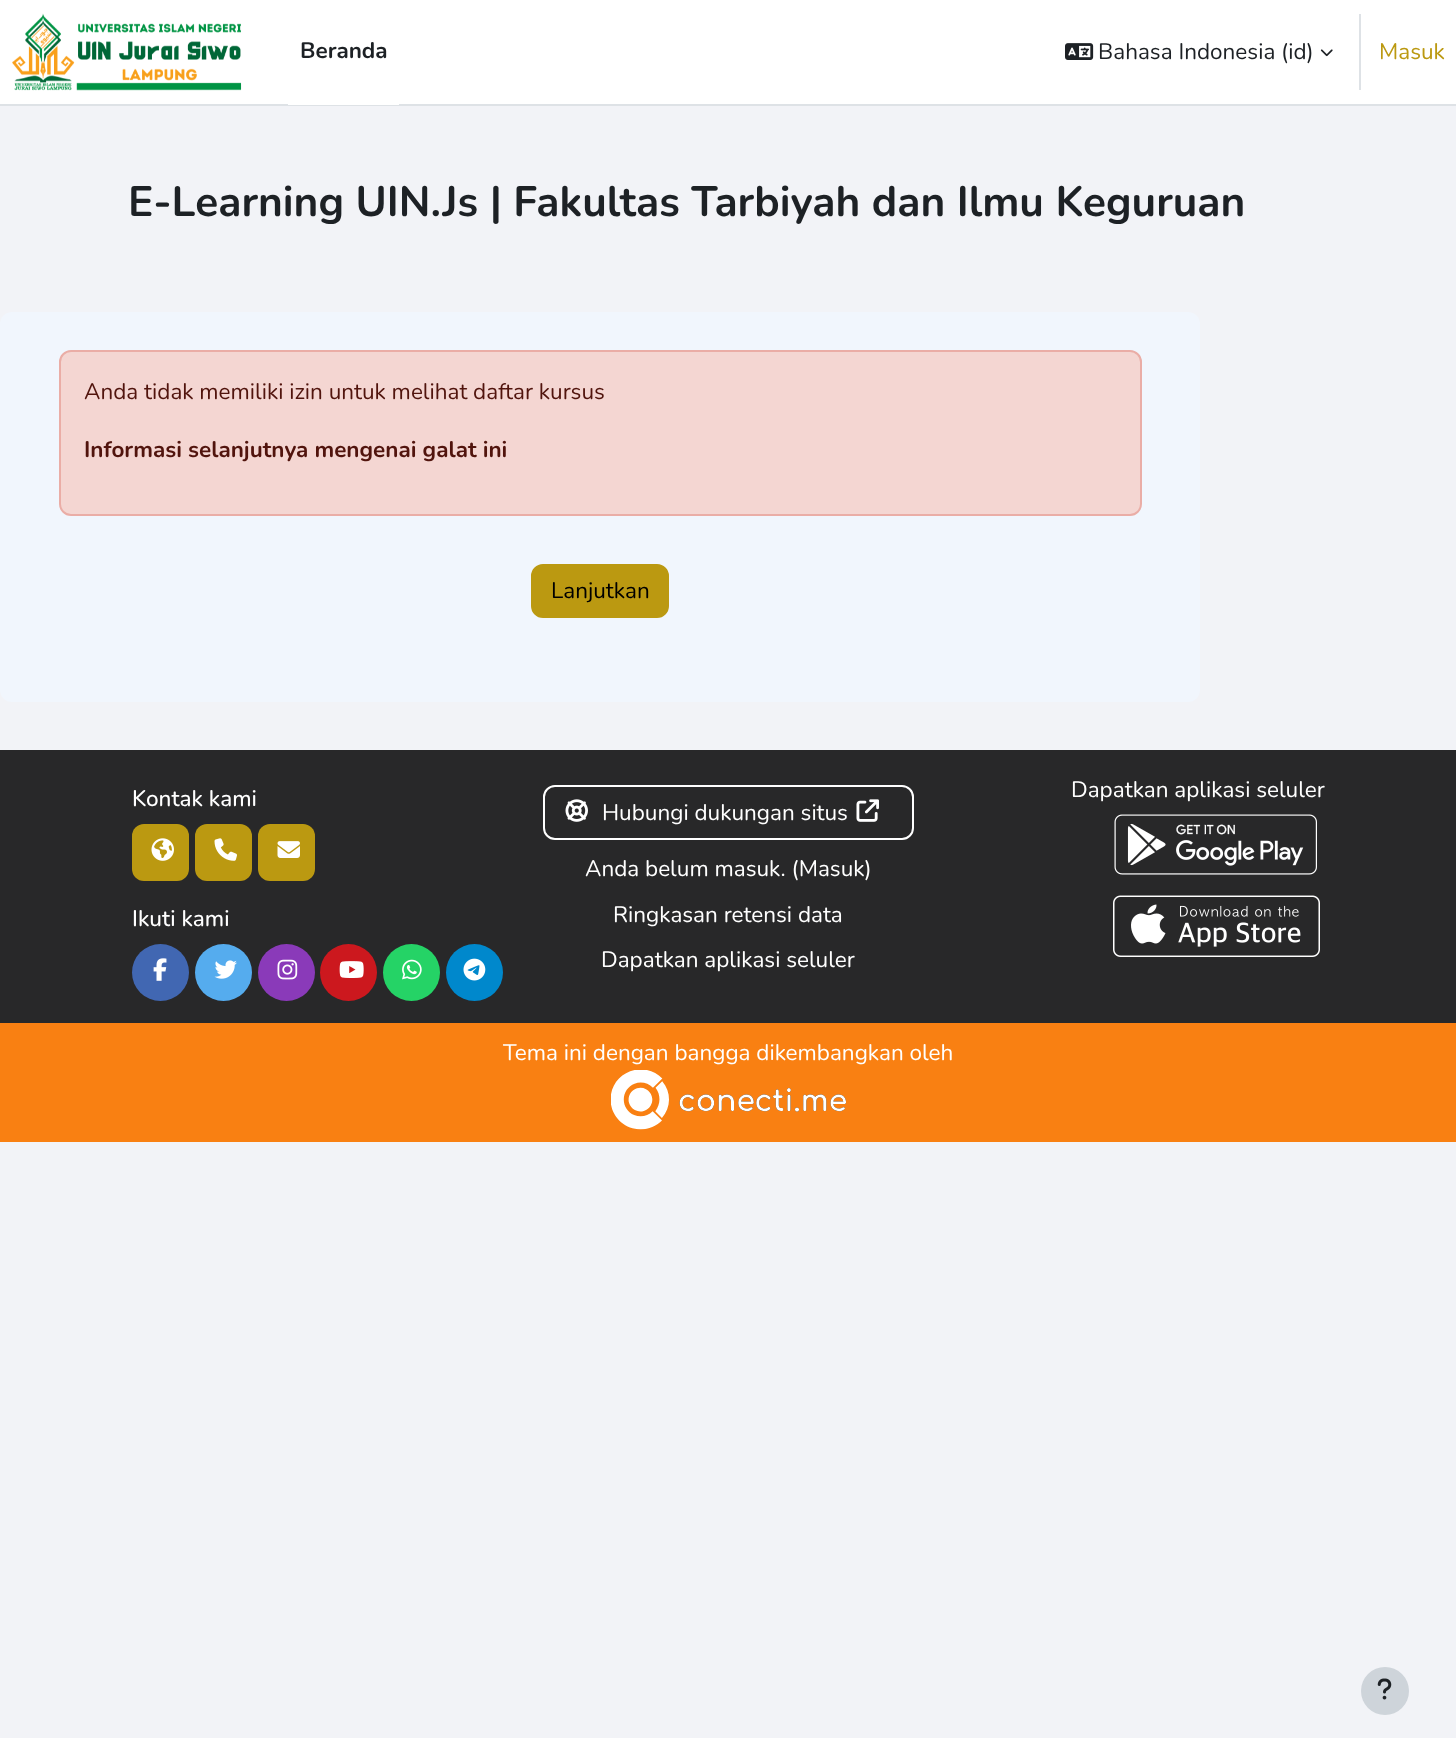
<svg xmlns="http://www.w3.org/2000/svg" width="1456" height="1738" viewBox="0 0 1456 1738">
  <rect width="100%" height="100%" fill="#f2f3f7"/>
  <path d="M0 0h1456v104H0z" fill="#fff"/>
  <path d="M0 104h1456v2H0z" fill="#dee2e6"/>
  <image x="12" y="13" width="230" height="78" href="img/1.png"/>
  <path d="M288 104h111v1H288z" fill="#fff"/>
  <image x="1065" y="43" width="29" height="17" href="img/2.png"/>
  <image x="1320" y="49" width="13" height="8" href="img/3.png"/>
  <path d="M1359 14h2v76H1359z" fill="#dee2e6"/>
  <rect y="312" width="1200" height="390" rx="12" fill="#f1f6fd"/>
  <rect x="60" y="351" width="1081" height="164" rx="11" fill="#f4d6d2" stroke="#eaada6" stroke-width="2"/>
  <rect x="532" y="565" width="136" height="52" rx="11" fill="#b91" stroke="#b91" stroke-width="2"/>
  <path d="M0 750h1456v273H0z" fill="#282829"/>
  <rect x="132" y="824" width="57" height="57" rx="12" fill="#b91"/>
  <image x="151" y="838" width="23" height="23" href="img/4.png"/>
  <rect x="195" y="824" width="57" height="57" rx="12" fill="#b91"/>
  <image x="214" y="838" width="23" height="23" href="img/5.png"/>
  <rect x="258" y="824" width="57" height="57" rx="12" fill="#b91"/>
  <image x="277" y="841" width="23" height="17" href="img/6.png"/>
  <circle cx="160.5" cy="972.5" r="28.5" fill="#4167b2"/>
  <image x="153" y="958" width="14" height="23" href="img/7.png"/>
  <circle cx="223.5" cy="972.5" r="28.5" fill="#55acee"/>
  <image x="214" y="960" width="23" height="19" href="img/8.png"/>
  <circle cx="286.5" cy="972.5" r="28.5" fill="#8a3ab9"/>
  <image x="277" y="959" width="21" height="21" href="img/9.png"/>
  <circle cx="348.5" cy="972.5" r="28.5" fill="#cc181e"/>
  <image x="339" y="961" width="25" height="17" href="img/10.png"/>
  <circle cx="411.5" cy="972.5" r="28.5" fill="#25d366"/>
  <image x="402" y="959" width="20" height="21" href="img/11.png"/>
  <circle cx="474.5" cy="972.5" r="28.5" fill="#08c"/>
  <image x="463" y="958" width="23" height="23" href="img/12.png"/>
  <rect x="544" y="786" width="369" height="53" rx="11" fill="none" stroke="#fff" stroke-width="2"/>
  <image x="565" y="799" width="23" height="23" href="img/13.png"/>
  <image x="856" y="799" width="23" height="23" href="img/14.png"/>
  <image x="1114" y="814" width="203" height="61" href="img/15.png"/>
  <image x="1113" y="895" width="207" height="62" href="img/16.png"/>
  <path d="M0 1023h1456v119H0z" fill="#f98012"/>
  <image x="611" y="1070" width="235" height="60" href="img/17.png"/>
  <circle cx="1385" cy="1691" r="24" fill="#ced4da"/>
  <image x="1377" y="1678" width="15" height="22" href="img/18.png"/>
  <text x="300" y="58" font-family="Nunito" font-size="22.5" font-weight="bold" fill="#1d2125">Beranda</text>
  <text x="1098" y="59" font-family="Nunito" font-size="22.5" fill="#1d2125">Bahasa Indonesia (id)</text>
  <text x="1379" y="59" font-family="Nunito" font-size="22.5" fill="#b91">Masuk</text>
  <text x="128" y="216" font-family="Nunito" font-size="42.4" font-weight="bold" fill="#1d2125">E-Learning UIN.Js | Fakultas Tarbiyah dan Ilmu Keguruan</text>
  <text x="84" y="399" font-family="Nunito" font-size="22.5" fill="#51140d">Anda tidak memiliki izin untuk melihat daftar kursus</text>
  <text x="84" y="457" font-family="Nunito" font-size="22.5" font-weight="bold" fill="#51140d">Informasi selanjutnya mengenai galat ini</text>
  <text x="551" y="598" font-family="Nunito" font-size="22.5" fill="#000">Lanjutkan</text>
  <g font-family="Nunito" font-size="22.5" font-weight="500" fill="#fff">
    <text x="132" y="806">Kontak kami</text>
    <text x="132" y="926">Ikuti kami</text>
  </g>
  <g font-family="Nunito" font-size="22.5" fill="#fff">
    <text x="602" y="820">Hubungi dukungan situs</text>
    <text x="585" y="876">Anda belum masuk. (Masuk)</text>
    <text x="613" y="922">Ringkasan retensi data</text>
    <text x="601" y="967">Dapatkan aplikasi seluler</text>
    <text x="1071" y="797">Dapatkan aplikasi seluler</text>
    <text x="503" y="1060">Tema ini dengan bangga dikembangkan oleh</text>
  </g>
</svg>
